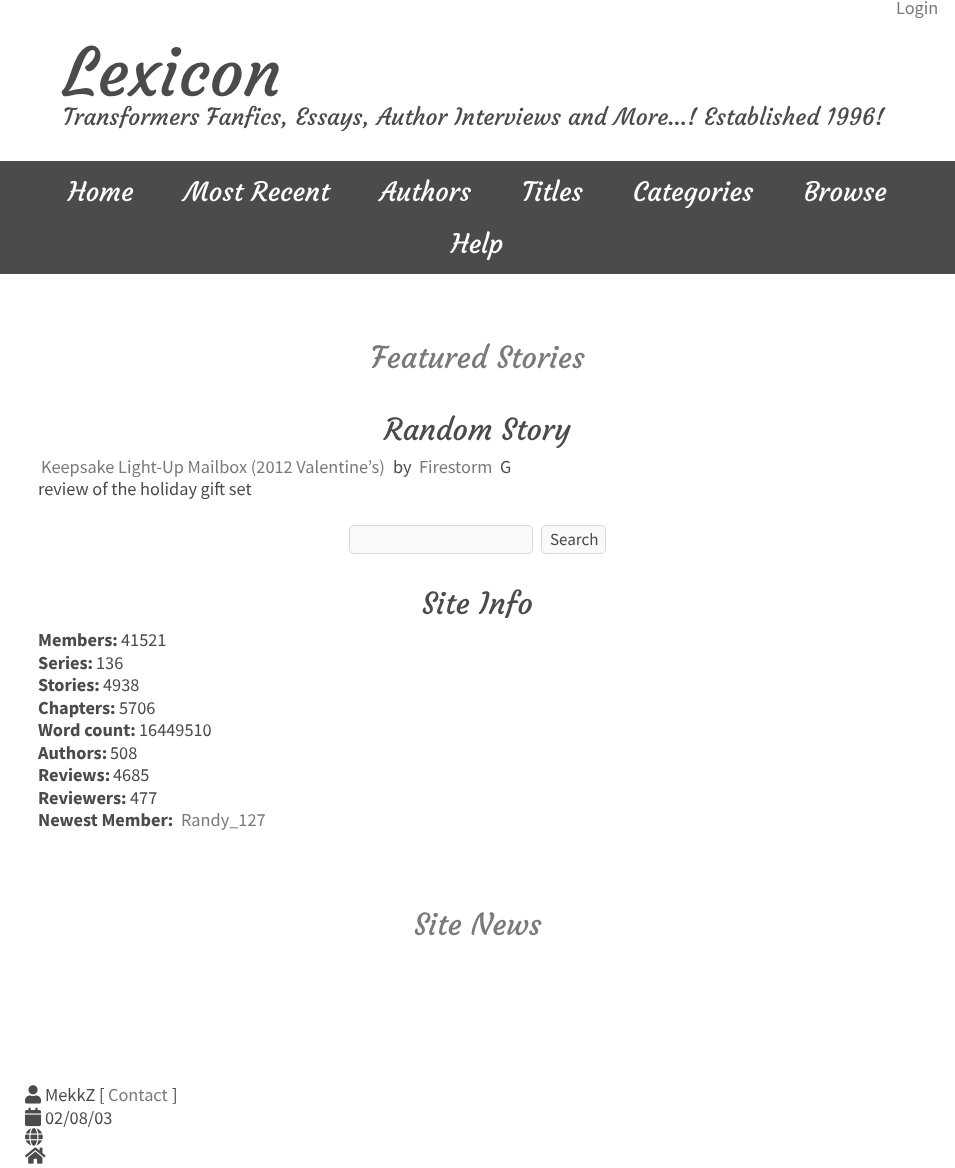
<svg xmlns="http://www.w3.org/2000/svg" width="955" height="1168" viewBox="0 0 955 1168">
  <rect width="100%" height="100%" fill="#fff"/>
  <path d="M0 161h955v113H0z" fill="#4d4a4b"/>
  <rect x="349.5" y="525.5" width="183" height="28" rx="4.5" fill="#fafafa" stroke="#d8d8d8"/>
  <rect x="541.5" y="525.5" width="64" height="28" rx="4.5" fill="#fafafa" stroke="#d8d8d8"/>
  <image x="25" y="1085" width="17" height="19" href="img/1.png"/>
  <image x="25" y="1107" width="17" height="20" href="img/2.png"/>
  <image x="25" y="1128" width="18" height="18" href="img/3.png"/>
  <image x="25" y="1147" width="21" height="17" href="img/4.png"/>
  <text x="896" y="14" font-family="Source Sans Pro" font-size="18.3" fill="#7d7879">Login</text>
  <text x="63" y="96" font-family="Courgette" font-size="66.5" fill="#4d4a4b">Lexicon</text>
  <text x="63" y="125" font-family="Courgette" font-size="23.35" fill="#4d4a4b">Transformers Fanfics, Essays, Author Interviews and More...! Established 1996!</text>
  <g font-family="Courgette" font-size="26.5" fill="#fff">
    <text x="68" y="201">Home</text>
    <text x="184" y="201">Most Recent</text>
    <text x="380" y="201">Authors</text>
    <text x="522" y="201">Titles</text>
    <text x="633" y="201">Categories</text>
    <text x="804" y="201">Browse</text>
    <text x="451" y="253">Help</text>
  </g>
  <text x="371" y="368" font-family="Courgette" font-size="30" fill="#7d7879">Featured Stories</text>
  <text x="384" y="440" font-family="Courgette" font-size="30" fill="#4d4a4b">Random Story</text>
  <text x="41" y="473" font-family="Source Sans Pro" font-size="18.3" fill="#7d7879">Keepsake Light-Up Mailbox (2012 Valentine’s)</text>
  <text x="393" y="473" font-family="Source Sans Pro" font-size="18.3" fill="#4d4a4b">by</text>
  <text x="419" y="473" font-family="Source Sans Pro" font-size="18.3" fill="#7d7879">Firestorm</text>
  <g font-family="Source Sans Pro" font-size="18.3" fill="#4d4a4b">
    <text x="500" y="473">G</text>
    <text x="38" y="495">review of the holiday gift set</text>
  </g>
  <text x="550" y="545" font-family="Source Sans Pro" font-size="17" fill="#4d4a4b">Search</text>
  <text x="422" y="614" font-family="Courgette" font-size="30" fill="#4d4a4b">Site Info</text>
  <text x="38" y="646" font-family="Source Sans Pro" font-size="18.3" font-weight="bold" fill="#4d4a4b">Members:</text>
  <text x="121" y="646" font-family="Source Sans Pro" font-size="18.3" fill="#4d4a4b">41521</text>
  <text x="38" y="669" font-family="Source Sans Pro" font-size="18.3" font-weight="bold" fill="#4d4a4b">Series:</text>
  <text x="96" y="669" font-family="Source Sans Pro" font-size="18.3" fill="#4d4a4b">136</text>
  <text x="38" y="691" font-family="Source Sans Pro" font-size="18.3" font-weight="bold" fill="#4d4a4b">Stories:</text>
  <text x="103" y="691" font-family="Source Sans Pro" font-size="18.3" fill="#4d4a4b">4938</text>
  <text x="38" y="714" font-family="Source Sans Pro" font-size="18.3" font-weight="bold" fill="#4d4a4b">Chapters:</text>
  <text x="119" y="714" font-family="Source Sans Pro" font-size="18.3" fill="#4d4a4b">5706</text>
  <text x="38" y="736" font-family="Source Sans Pro" font-size="18.3" font-weight="bold" fill="#4d4a4b">Word count:</text>
  <text x="139" y="736" font-family="Source Sans Pro" font-size="18.3" fill="#4d4a4b">16449510</text>
  <text x="38" y="759" font-family="Source Sans Pro" font-size="18.3" font-weight="bold" fill="#4d4a4b">Authors:</text>
  <text x="110" y="759" font-family="Source Sans Pro" font-size="18.3" fill="#4d4a4b">508</text>
  <text x="38" y="781" font-family="Source Sans Pro" font-size="18.3" font-weight="bold" fill="#4d4a4b">Reviews:</text>
  <text x="113" y="781" font-family="Source Sans Pro" font-size="18.3" fill="#4d4a4b">4685</text>
  <text x="38" y="804" font-family="Source Sans Pro" font-size="18.3" font-weight="bold" fill="#4d4a4b">Reviewers:</text>
  <text x="130" y="804" font-family="Source Sans Pro" font-size="18.3" fill="#4d4a4b">477</text>
  <text x="38" y="826" font-family="Source Sans Pro" font-size="18.3" font-weight="bold" fill="#4d4a4b">Newest Member:</text>
  <text x="181" y="826" font-family="Source Sans Pro" font-size="18.3" fill="#7d7879">Randy_127</text>
  <text x="414" y="935" font-family="Courgette" font-size="30" fill="#7d7879">Site News</text>
  <text x="45" y="1101" font-family="Source Sans Pro" font-size="18.3" fill="#4d4a4b">MekkZ [</text>
  <text x="108" y="1101" font-family="Source Sans Pro" font-size="18.3" fill="#7d7879">Contact</text>
  <g font-family="Source Sans Pro" font-size="18.3" fill="#4d4a4b">
    <text x="172" y="1101">]</text>
    <text x="45" y="1124">02/08/03</text>
  </g>
</svg>
